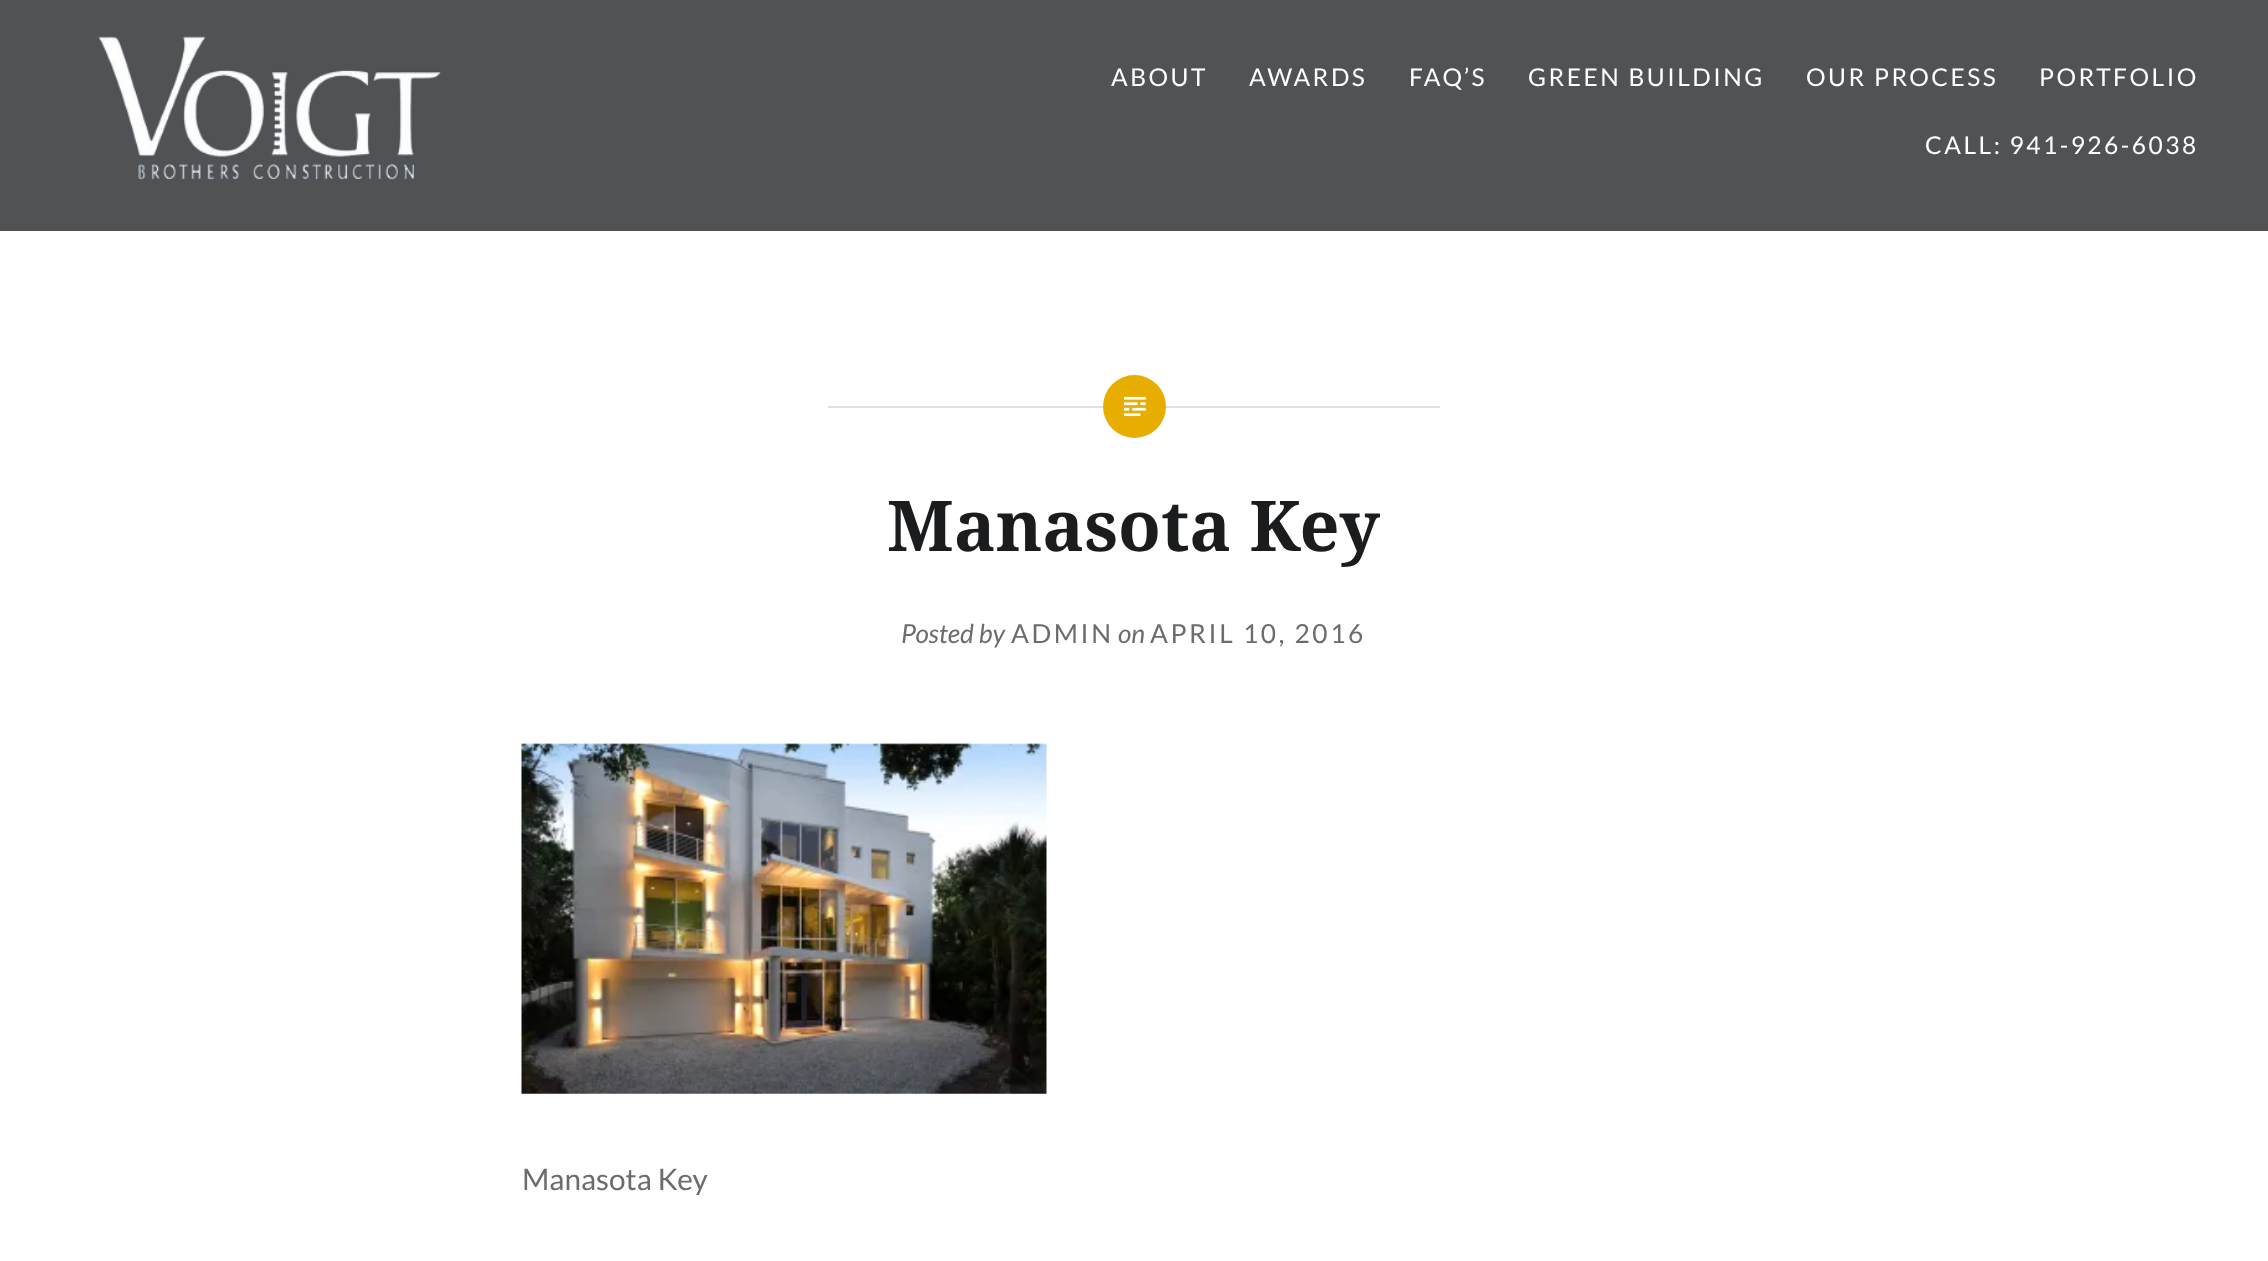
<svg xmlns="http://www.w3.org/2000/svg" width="2268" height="1261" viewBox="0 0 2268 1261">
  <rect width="100%" height="100%" fill="#fff"/>
  <path d="M0 0h2268v231H0z" fill="#505254"/>
  <image x="98" y="36" width="343" height="144" href="img/1.png"/>
  <path d="M828 406h612v2H828z" fill="#e0e0e0"/>
  <circle cx="1134.5" cy="406.5" r="31.5" fill="#e7ae01"/>
  <image x="1123" y="396" width="23" height="21" href="img/2.png"/>
  <image x="521" y="743" width="526" height="351" href="img/3.png"/>
  <g font-family="Lato" font-size="24.5" letter-spacing="2.5" fill="#fff">
    <text x="1111" y="86">ABOUT</text>
    <text x="1249" y="86">AWARDS</text>
    <text x="1409" y="86">FAQ’S</text>
    <text x="1528" y="86">GREEN BUILDING</text>
    <text x="1806" y="86">OUR PROCESS</text>
    <text x="2039" y="86">PORTFOLIO</text>
    <text x="1925" y="154">CALL: 941-926-6038</text>
  </g>
  <text x="887" y="551" font-family="Noto Serif" font-size="70" font-weight="bold" fill="#1a1c1e">Manasota Key</text>
  <text x="901" y="643" font-family="Lato" font-size="26.25" font-style="italic" fill="#6a6c6e">Posted by</text>
  <text x="1011" y="643" font-family="Lato" font-size="26.25" letter-spacing="2.6" fill="#6a6c6e">ADMIN</text>
  <text x="1118" y="643" font-family="Lato" font-size="26.25" font-style="italic" fill="#6a6c6e">on</text>
  <text x="1150" y="643" font-family="Lato" font-size="26.25" letter-spacing="2.6" fill="#6a6c6e">APRIL 10, 2016</text>
  <text x="522" y="1190" font-family="Lato" font-size="29.75" fill="#6a6c6e">Manasota Key</text>
</svg>
